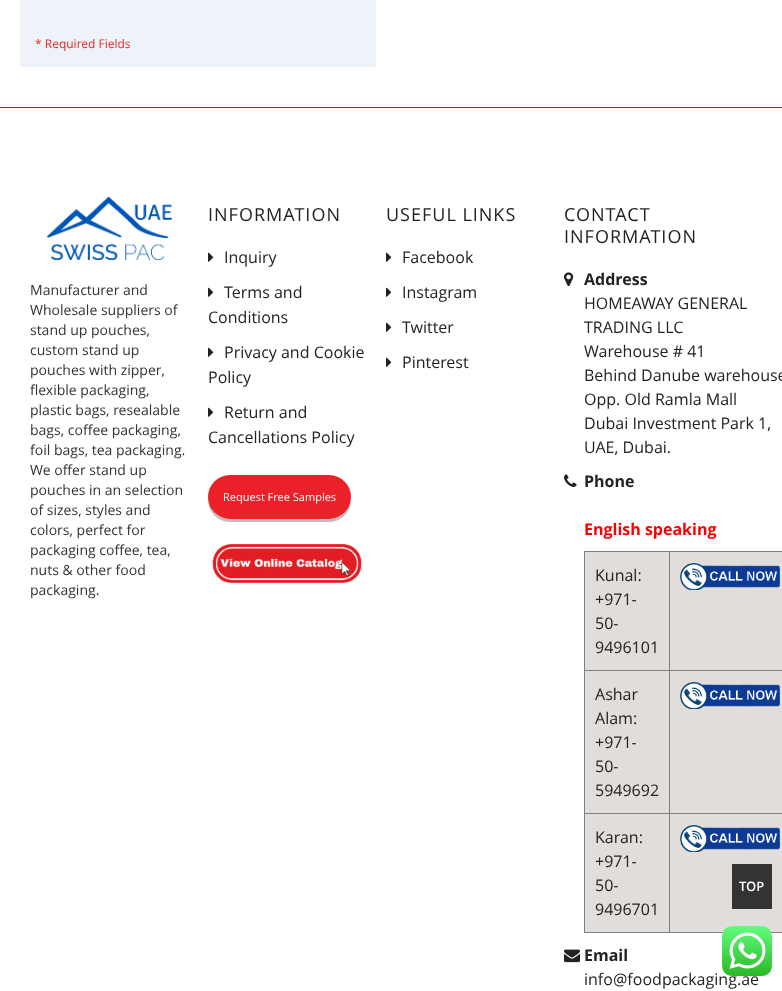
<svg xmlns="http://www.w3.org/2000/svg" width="782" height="991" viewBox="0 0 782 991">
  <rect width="100%" height="100%" fill="#fff"/>
  <path d="M20 0h356v67H20z" fill="#eef3fa"/>
  <path d="M0 107h782v1H0z" fill="#1253ae"/>
  <image x="47" y="197" width="125" height="63" href="img/1.png"/>
  <image x="208" y="252" width="6" height="10" href="img/2.png"/>
  <image x="208" y="287" width="6" height="10" href="img/2.png"/>
  <image x="208" y="347" width="6" height="10" href="img/2.png"/>
  <image x="208" y="407" width="6" height="10" href="img/2.png"/>
  <path d="M208 498V500C208 512 218 522 230 522H329C341 522 351 512 351 500V498C350 510 341 519 329 519H230C218 519 209 510 208 498Z" fill="#bebebe"/>
  <rect x="208" y="475" width="143" height="44" rx="22" fill="#ec2028"/>
  <image x="212" y="544" width="150" height="39" href="img/3.png"/>
  <image x="386" y="252" width="6" height="10" href="img/2.png"/>
  <image x="386" y="287" width="6" height="10" href="img/2.png"/>
  <image x="386" y="322" width="6" height="10" href="img/2.png"/>
  <image x="386" y="357" width="6" height="10" href="img/2.png"/>
  <image x="564" y="272" width="10" height="15" href="img/4.png"/>
  <image x="564" y="474" width="13" height="13" href="img/5.png"/>
  <path d="M584 551h198v1H584z" fill="#808080"/>
  <path d="M584 932h198v1H584z" fill="#808080"/>
  <path d="M584 551h1v382H584z" fill="#808080"/>
  <path d="M585 552h84v118H585z" fill="#e1dddb"/>
  <path d="M670 552h112v118H670z" fill="#e1dddb"/>
  <path d="M669 670h113v1H669z" fill="#808080"/>
  <path d="M669 813h113v1H669z" fill="#808080"/>
  <path d="M669 813h1v120H669z" fill="#808080"/>
  <path d="M584 813h86v1H584z" fill="#808080"/>
  <path d="M669 670h1v144H669z" fill="#808080"/>
  <path d="M584 670h86v1H584z" fill="#808080"/>
  <path d="M669 551h1v120H669z" fill="#808080"/>
  <image x="680" y="563" width="100" height="27" href="img/6.png"/>
  <path d="M585 671h84v142H585z" fill="#e1dddb"/>
  <path d="M670 671h112v142H670z" fill="#e1dddb"/>
  <image x="680" y="682" width="100" height="27" href="img/6.png"/>
  <path d="M585 814h84v118H585z" fill="#e1dddb"/>
  <path d="M670 814h112v118H670z" fill="#e1dddb"/>
  <image x="680" y="825" width="100" height="27" href="img/7.png"/>
  <image x="564" y="949" width="16" height="14" href="img/8.png"/>
  <path d="M732 864h40v45H732z" fill="#333"/>
  <text x="35" y="48" font-family="Open Sans" font-size="12" fill="#e02b27">* Required Fields</text>
  <g font-family="Open Sans" font-size="14" fill="#333">
    <text x="30" y="295">Manufacturer and</text>
    <text x="30" y="315">Wholesale suppliers of</text>
    <text x="30" y="335">stand up pouches,</text>
    <text x="30" y="355">custom stand up</text>
    <text x="30" y="375">pouches with zipper,</text>
    <text x="30" y="395">flexible packaging,</text>
    <text x="30" y="415">plastic bags, resealable</text>
    <text x="30" y="435">bags, coffee packaging,</text>
    <text x="30" y="455">foil bags, tea packaging.</text>
    <text x="30" y="475">We offer stand up</text>
    <text x="30" y="495">pouches in an selection</text>
    <text x="30" y="515">of sizes, styles and</text>
    <text x="30" y="535">colors, perfect for</text>
    <text x="30" y="555">packaging coffee, tea,</text>
    <text x="30" y="575">nuts &amp; other food</text>
    <text x="30" y="595">packaging.</text>
  </g>
  <text x="208" y="221" font-family="Open Sans" font-size="18" letter-spacing="1" fill="#222">INFORMATION</text>
  <g font-family="Open Sans" font-size="16" fill="#222">
    <text x="224" y="263">Inquiry</text>
    <text x="224" y="298">Terms and</text>
    <text x="208" y="323">Conditions</text>
    <text x="224" y="358">Privacy and Cookie</text>
    <text x="208" y="383">Policy</text>
    <text x="224" y="418">Return and</text>
    <text x="208" y="443">Cancellations Policy</text>
  </g>
  <text x="223" y="501" font-family="Open Sans" font-size="11" fill="#fff">Request Free Samples</text>
  <text x="386" y="221" font-family="Open Sans" font-size="18" letter-spacing="1" fill="#222">USEFUL LINKS</text>
  <g font-family="Open Sans" font-size="16" fill="#222">
    <text x="402" y="263">Facebook</text>
    <text x="402" y="298">Instagram</text>
    <text x="402" y="333">Twitter</text>
    <text x="402" y="368">Pinterest</text>
  </g>
  <g font-family="Open Sans" font-size="18" letter-spacing="1" fill="#222">
    <text x="564" y="221">CONTACT</text>
    <text x="564" y="243">INFORMATION</text>
  </g>
  <text x="584" y="285" font-family="Open Sans" font-size="16" font-weight="bold" fill="#222">Address</text>
  <g font-family="Open Sans" font-size="16" fill="#222">
    <text x="584" y="309">HOMEAWAY GENERAL</text>
    <text x="584" y="333">TRADING LLC</text>
    <text x="584" y="357">Warehouse # 41</text>
    <text x="584" y="381">Behind Danube warehouse</text>
    <text x="584" y="405">Opp. Old Ramla Mall</text>
    <text x="584" y="429">Dubai Investment Park 1,</text>
    <text x="584" y="453">UAE, Dubai.</text>
  </g>
  <text x="584" y="487" font-family="Open Sans" font-size="16" font-weight="bold" fill="#222">Phone</text>
  <text x="584" y="535" font-family="Open Sans" font-size="16" font-weight="bold" fill="#f90101">English speaking</text>
  <g font-family="Open Sans" font-size="16" fill="#222">
    <text x="595" y="581">Kunal:</text>
    <text x="595" y="605">+971-</text>
    <text x="595" y="629">50-</text>
    <text x="595" y="653">9496101</text>
    <text x="595" y="700">Ashar</text>
    <text x="595" y="724">Alam:</text>
    <text x="595" y="748">+971-</text>
    <text x="595" y="772">50-</text>
    <text x="595" y="796">5949692</text>
    <text x="595" y="843">Karan:</text>
    <text x="595" y="867">+971-</text>
    <text x="595" y="891">50-</text>
    <text x="595" y="915">9496701</text>
  </g>
  <text x="584" y="961" font-family="Open Sans" font-size="16" font-weight="bold" fill="#222">Email</text>
  <text x="584" y="985" font-family="Open Sans" font-size="16" fill="#222">info@foodpackaging.ae</text>
  <image x="722" y="926" width="50" height="50" href="img/9.png"/>
  <text x="739" y="891" font-family="Open Sans" font-size="13" font-weight="600" fill="#fff">TOP</text>
</svg>
